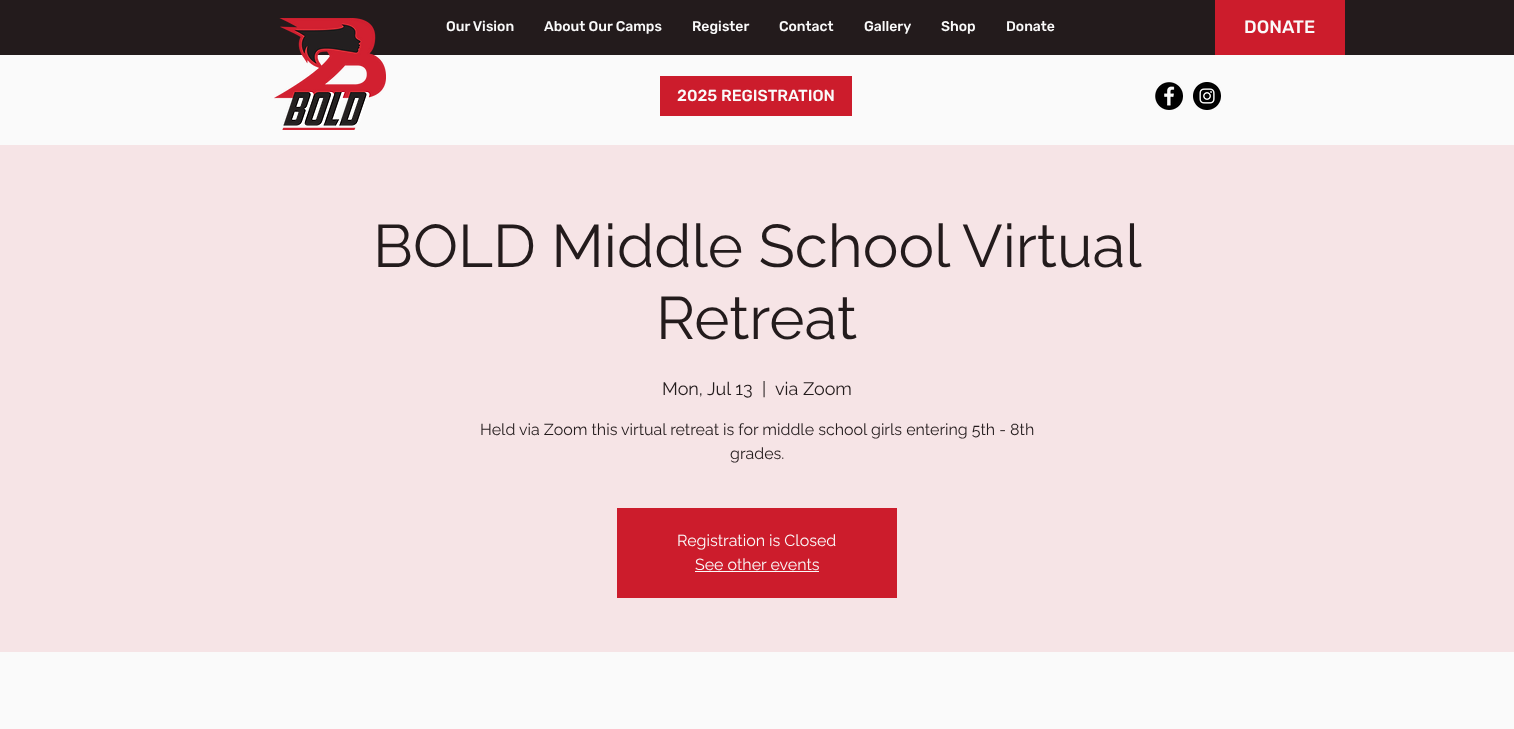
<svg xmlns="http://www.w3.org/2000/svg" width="1514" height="729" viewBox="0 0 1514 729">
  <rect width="100%" height="100%" fill="#fafafa"/>
  <path d="M0 0h1514v55H0z" fill="#231b1c"/>
  <image x="274" y="18" width="112" height="112" href="img/1.png"/>
  <path d="M1215 0h130v55H1215z" fill="#cc1c2c"/>
  <path d="M660 76h192v40H660z" fill="#cc1c2c"/>
  <image x="1155" y="82" width="28" height="28" href="img/2.png"/>
  <image x="1193" y="82" width="28" height="28" href="img/3.png"/>
  <path d="M0 145h1514v507H0z" fill="#f6e4e6"/>
  <path d="M617 508h280v90H617z" fill="#cc1c2c"/>
  <path d="M695 571h124v1H695z" fill="#fafafa"/>
  <g font-family="Rubik" font-size="14" font-weight="500" fill="#fafafa">
    <text x="446" y="31">Our Vision</text>
    <text x="544" y="31">About Our Camps</text>
    <text x="692" y="31">Register</text>
    <text x="779" y="31">Contact</text>
    <text x="864" y="31">Gallery</text>
    <text x="941" y="31">Shop</text>
    <text x="1006" y="31">Donate</text>
  </g>
  <text x="1244" y="33" font-family="Rubik" font-size="18" font-weight="500" fill="#fafafa">DONATE</text>
  <text x="677" y="101" font-family="Rubik" font-size="16" font-weight="500" fill="#fafafa">2025 REGISTRATION</text>
  <g font-family="Raleway" font-size="60" fill="#231b1c">
    <text x="373" y="267">BOLD Middle School Virtual</text>
    <text x="656" y="339">Retreat</text>
  </g>
  <g font-family="Raleway" font-size="18" fill="#231b1c">
    <text x="662" y="395">Mon, Jul 13</text>
    <text x="762" y="395">|</text>
    <text x="775" y="395">via Zoom</text>
  </g>
  <g font-family="Raleway" font-size="16" fill="#231b1c">
    <text x="480" y="435">Held via Zoom this virtual retreat is for middle school girls entering 5th - 8th</text>
    <text x="730" y="459">grades.</text>
  </g>
  <g font-family="Raleway" font-size="16" fill="#fafafa">
    <text x="677" y="546">Registration is Closed</text>
    <text x="695" y="570">See other events</text>
  </g>
</svg>
